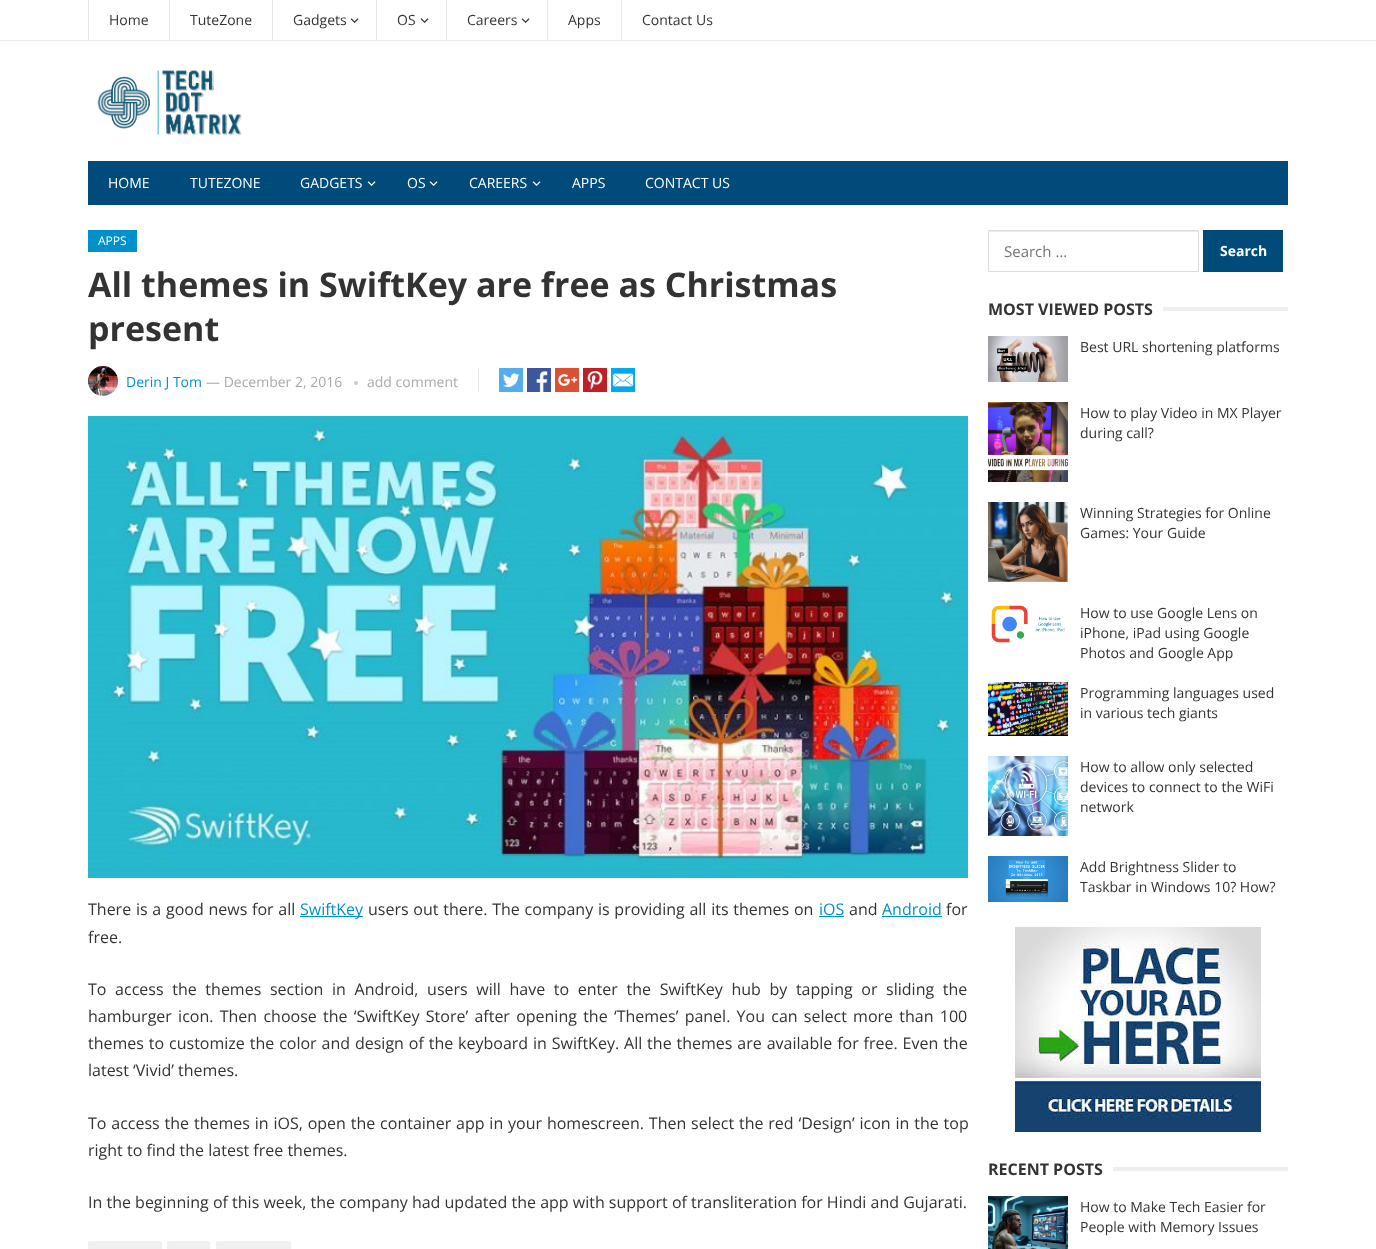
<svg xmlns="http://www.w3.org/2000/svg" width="1376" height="1249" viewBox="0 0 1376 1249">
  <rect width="100%" height="100%" fill="#fff"/>
  <path d="M0 40h1376v1H0z" fill="#e9e9e9"/>
  <path d="M88 0h1v40H88z" fill="#e9e9e9"/>
  <path d="M169 0h1v40H169z" fill="#e9e9e9"/>
  <path d="M272 0h1v40H272z" fill="#e9e9e9"/>
  <image x="350" y="18" width="9" height="5" href="img/1.png"/>
  <path d="M376 0h1v40H376z" fill="#e9e9e9"/>
  <image x="420" y="18" width="9" height="5" href="img/1.png"/>
  <path d="M446 0h1v40H446z" fill="#e9e9e9"/>
  <image x="521" y="18" width="9" height="5" href="img/1.png"/>
  <path d="M547 0h1v40H547z" fill="#e9e9e9"/>
  <path d="M621 0h1v40H621z" fill="#e9e9e9"/>
  <image x="97" y="70" width="145" height="66" href="img/2.png"/>
  <path d="M88 161h1200v44H88z" fill="#004b79"/>
  <image x="367" y="181" width="9" height="5" href="img/3.png"/>
  <image x="429" y="181" width="9" height="5" href="img/3.png"/>
  <image x="532" y="181" width="9" height="5" href="img/3.png"/>
  <path d="M88 230h49v22H88z" fill="#0091cd"/>
  <image x="88" y="366" width="30" height="30" href="img/4.png"/>
  <circle cx="356" cy="383" r="2" fill="#ccc"/>
  <path d="M478 368h1v24H478z" fill="#e6e6e6"/>
  <image x="499" y="368" width="24" height="24" href="img/5.png"/>
  <image x="527" y="368" width="24" height="24" href="img/6.png"/>
  <image x="555" y="368" width="24" height="24" href="img/7.png"/>
  <image x="583" y="368" width="24" height="24" href="img/8.png"/>
  <image x="611" y="368" width="24" height="24" href="img/9.png"/>
  <image x="88" y="416" width="880" height="462" href="img/10.png"/>
  <path d="M300 916h63v1H300z" fill="#0091cd"/>
  <path d="M819 916h25v1H819z" fill="#0091cd"/>
  <path d="M882 916h60v1H882z" fill="#0091cd"/>
  <rect x="88" y="1241" width="74" height="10" rx="2" fill="#f0f0f0"/>
  <rect x="167" y="1241" width="43" height="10" rx="2" fill="#f0f0f0"/>
  <rect x="216" y="1241" width="75" height="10" rx="2" fill="#f0f0f0"/>
  <path d="M989 231h209v1H989z" fill="#ececec"/>
  <path d="M988.5 230.5h210v41H988.5z" fill="none" stroke="#ddd"/>
  <path d="M1203 231h80v41H1203z" fill="#004b79"/>
  <path d="M1203 230h80v1H1203z" fill="#004570"/>
  <path d="M1163 307h125v4H1163z" fill="#eee"/>
  <image x="988" y="336" width="80" height="46" href="img/11.png"/>
  <image x="988" y="402" width="80" height="80" href="img/12.png"/>
  <image x="988" y="502" width="80" height="80" href="img/13.png"/>
  <image x="991" y="605" width="74" height="38" href="img/14.png"/>
  <image x="988" y="682" width="80" height="54" href="img/15.png"/>
  <image x="988" y="756" width="80" height="80" href="img/16.png"/>
  <image x="988" y="856" width="80" height="46" href="img/17.png"/>
  <image x="1015" y="927" width="246" height="205" href="img/18.png"/>
  <path d="M1113 1167h175v4H1113z" fill="#eee"/>
  <image x="988" y="1196" width="80" height="53" href="img/19.png"/>
  <g font-family="Open Sans" font-size="14" fill="#333">
    <text x="109" y="25">Home</text>
    <text x="190" y="25">TuteZone</text>
    <text x="293" y="25">Gadgets</text>
    <text x="397" y="25">OS</text>
    <text x="467" y="25">Careers</text>
    <text x="568" y="25">Apps</text>
    <text x="642" y="25">Contact Us</text>
  </g>
  <g font-family="Open Sans" font-size="14" fill="#fff">
    <text x="108" y="188">HOME</text>
    <text x="190" y="188">TUTEZONE</text>
    <text x="300" y="188">GADGETS</text>
    <text x="407" y="188">OS</text>
    <text x="469" y="188">CAREERS</text>
    <text x="572" y="188">APPS</text>
    <text x="645" y="188">CONTACT US</text>
  </g>
  <text x="98" y="245" font-family="Open Sans" font-size="12" fill="#fff">APPS</text>
  <g font-family="Open Sans" font-size="34" font-weight="bold" fill="#333">
    <text x="88" y="297">All themes in SwiftKey are free as Christmas</text>
    <text x="88" y="341">present</text>
  </g>
  <text x="126" y="387" font-family="Open Sans" font-size="14" fill="#0091cd">Derin J Tom</text>
  <g font-family="Open Sans" font-size="14" fill="#aaa">
    <text x="206" y="387">— December 2, 2016</text>
    <text x="367" y="387">add comment</text>
  </g>
  <text x="88" y="915" word-spacing="0.6" font-family="Open Sans" font-size="16" fill="#333">There is a good news for all</text>
  <text x="300" y="915" font-family="Open Sans" font-size="16" fill="#0091cd">SwiftKey</text>
  <text x="368" y="915" word-spacing="0.6" font-family="Open Sans" font-size="16" fill="#333">users out there. The company is providing all its themes on</text>
  <text x="819" y="915" font-family="Open Sans" font-size="16" fill="#0091cd">iOS</text>
  <text x="849" y="915" font-family="Open Sans" font-size="16" fill="#333">and</text>
  <text x="882" y="915" font-family="Open Sans" font-size="16" fill="#0091cd">Android</text>
  <g font-family="Open Sans" font-size="16" fill="#333">
    <text x="946" y="915">for</text>
    <text x="88" y="943">free.</text>
    <text x="88" y="995" word-spacing="4.5">To access the themes section in Android, users will have to enter the SwiftKey hub by tapping or sliding the</text>
    <text x="88" y="1022" word-spacing="2.1">hamburger icon. Then choose the ‘SwiftKey Store’ after opening the ‘Themes’ panel. You can select more than 100</text>
    <text x="88" y="1049" word-spacing="0.75">themes to customize the color and design of the keyboard in SwiftKey. All the themes are available for free. Even the</text>
    <text x="88" y="1076">latest ‘Vivid’ themes.</text>
    <text x="88" y="1129" word-spacing="0.7">To access the themes in iOS, open the container app in your homescreen. Then select the red ‘Design’ icon in the top</text>
    <text x="88" y="1156">right to find the latest free themes.</text>
    <text x="88" y="1208">In the beginning of this week, the company had updated the app with support of transliteration for Hindi and Gujarati.</text>
  </g>
  <text x="1004" y="257" font-family="Open Sans" font-size="15" fill="#757575">Search …</text>
  <text x="1220" y="256" font-family="Open Sans" font-size="14" font-weight="bold" fill="#fff">Search</text>
  <text x="988" y="315" font-family="Open Sans" font-size="16" font-weight="bold" fill="#333">MOST VIEWED POSTS</text>
  <g font-family="Open Sans" font-size="14" fill="#333">
    <text x="1080" y="352">Best URL shortening platforms</text>
    <text x="1080" y="418">How to play Video in MX Player</text>
    <text x="1080" y="438">during call?</text>
    <text x="1080" y="518">Winning Strategies for Online</text>
    <text x="1080" y="538">Games: Your Guide</text>
    <text x="1080" y="618">How to use Google Lens on</text>
    <text x="1080" y="638">iPhone, iPad using Google</text>
    <text x="1080" y="658">Photos and Google App</text>
    <text x="1080" y="698">Programming languages used</text>
    <text x="1080" y="718">in various tech giants</text>
    <text x="1080" y="772">How to allow only selected</text>
    <text x="1080" y="792">devices to connect to the WiFi</text>
    <text x="1080" y="812">network</text>
    <text x="1080" y="872">Add Brightness Slider to</text>
    <text x="1080" y="892">Taskbar in Windows 10? How?</text>
  </g>
  <text x="988" y="1175" font-family="Open Sans" font-size="16" font-weight="bold" fill="#333">RECENT POSTS</text>
  <g font-family="Open Sans" font-size="14" fill="#333">
    <text x="1080" y="1212">How to Make Tech Easier for</text>
    <text x="1080" y="1232">People with Memory Issues</text>
  </g>
</svg>
